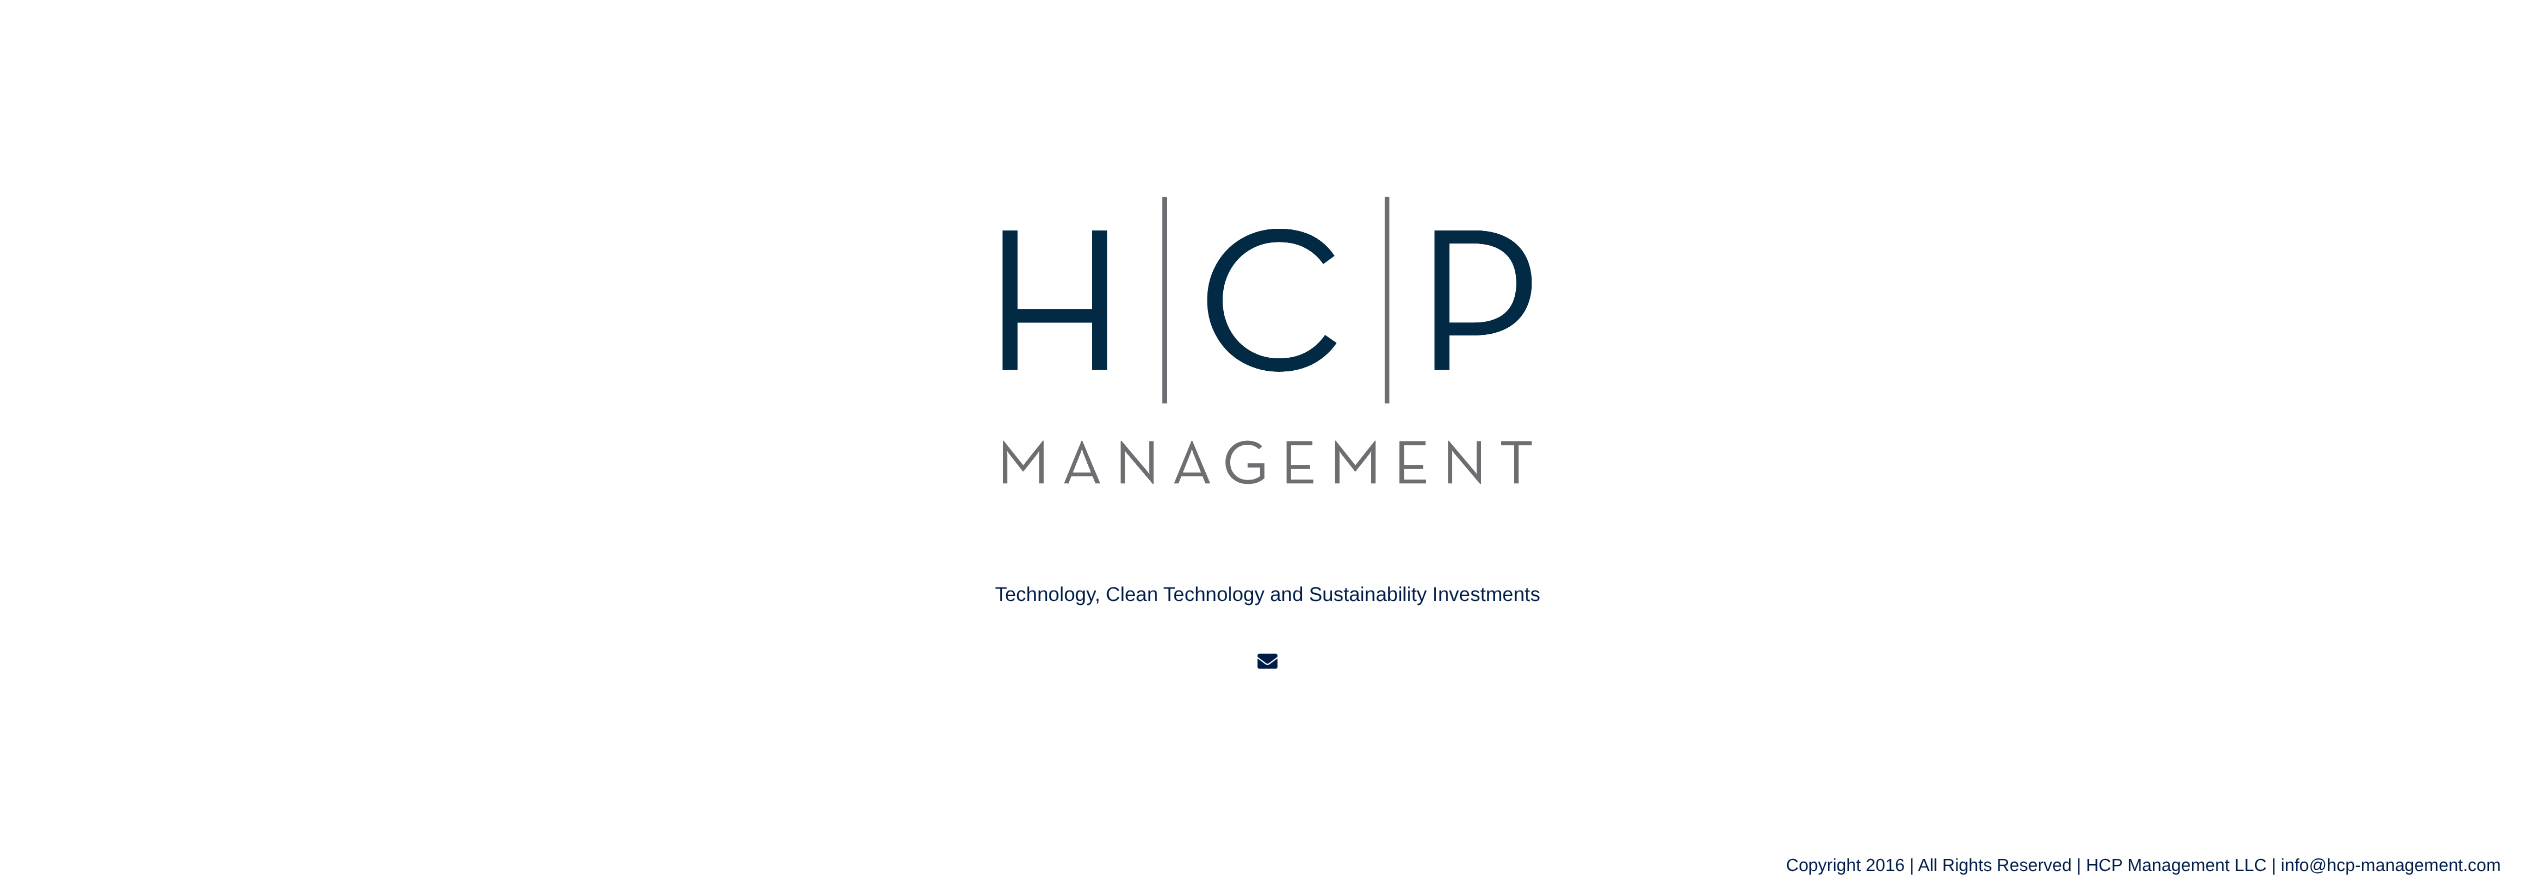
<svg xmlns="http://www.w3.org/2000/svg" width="2535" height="882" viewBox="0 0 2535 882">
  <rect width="100%" height="100%" fill="#fff"/>
  <image x="1002" y="196" width="530" height="289" href="img/1.png"/>
  <image x="1257" y="653" width="21" height="16" href="img/2.png"/>
  <text x="995" y="601" font-family="Liberation Sans" font-size="20" fill="#001d48">Technology, Clean Technology and Sustainability Investments</text>
  <g font-family="Liberation Sans" font-size="17.5" fill="#001d48">
    <text x="1786" y="871">Copyright 2016 |</text>
    <text x="1918" y="871">All Rights Reserved | HCP Management LLC | info@hcp-management.com</text>
  </g>
</svg>
